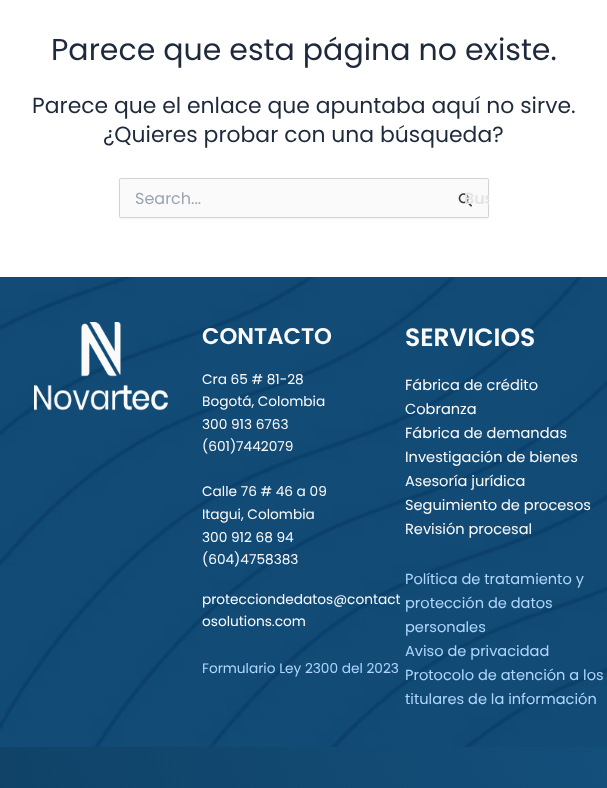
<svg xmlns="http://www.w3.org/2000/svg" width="607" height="788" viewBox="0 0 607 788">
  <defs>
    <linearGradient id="g1" gradientUnits="userSpaceOnUse" x1="565" y1="664" x2="42" y2="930"><stop offset="0" stop-color="#134f7b"/><stop offset="1" stop-color="#104266"/></linearGradient>
    <clipPath id="clip1"><rect x="444" y="178" width="45" height="42" rx="2"/></clipPath>
  </defs>
  <rect width="100%" height="100%" fill="#fff"/>
  <rect x="119" y="179" width="370" height="40" rx="2" fill="#0000000d" filter="blur(1px)"/>
  <rect x="119.5" y="178.5" width="369" height="39" rx="1.5" fill="#fafafa" stroke="#d1d5db"/>
  <image x="458" y="193" width="14" height="14" href="img/1.png"/>
  <image x="0" y="277" width="607" height="470" href="img/2.png"/>
  <image x="34" y="322" width="134" height="89" href="img/3.png"/>
  <path d="M0 747h607v41H0z" fill="url(#g1)"/>
  <text x="51" y="60" font-family="Poppins" font-size="30" fill="#1e293b">Parece que esta página no existe.</text>
  <g font-family="Poppins" font-size="21.9" fill="#1e293b">
    <text x="32" y="113">Parece que el enlace que apuntaba aquí no sirve.</text>
    <text x="103" y="142">¿Quieres probar con una búsqueda?</text>
  </g>
  <text x="135" y="204" font-family="Poppins" font-size="16" fill="#9ca3af">Search...</text>
  <g clip-path="url(#clip1)">
    <text x="464" y="204" font-family="Poppins" font-size="16" font-weight="600" fill="#e3e4e4">Bus</text>
  </g>
  <text x="202" y="344" font-family="Poppins" font-size="22.75" font-weight="600" fill="#fafafa">CONTACTO</text>
  <g font-family="Poppins" font-size="13.7" fill="#fafafa">
    <text x="202" y="384">Cra 65 # 81-28</text>
    <text x="202" y="406">Bogotá, Colombia</text>
    <text x="202" y="429">300 913 6763</text>
    <text x="202" y="451">(601)7442079</text>
    <text x="202" y="496">Calle 76 # 46 a 09</text>
    <text x="202" y="519">Itagui, Colombia</text>
    <text x="202" y="542">300 912 68 94</text>
    <text x="202" y="564">(604)4758383</text>
    <text x="202" y="604">protecciondedatos@contact</text>
    <text x="202" y="626">osolutions.com</text>
  </g>
  <text x="202" y="673" font-family="Poppins" font-size="13.7" fill="#aed6fe">Formulario Ley 2300 del 2023</text>
  <text x="405" y="346" font-family="Poppins" font-size="25" font-weight="600" fill="#fafafa">SERVICIOS</text>
  <g font-family="Poppins" font-size="14.6" fill="#fafafa">
    <text x="405" y="390">Fábrica de crédito</text>
    <text x="405" y="414">Cobranza</text>
    <text x="405" y="438">Fábrica de demandas</text>
    <text x="405" y="462">Investigación de bienes</text>
    <text x="405" y="486">Asesoría jurídica</text>
    <text x="405" y="510">Seguimiento de procesos</text>
    <text x="405" y="534">Revisión procesal</text>
  </g>
  <g font-family="Poppins" font-size="14.6" fill="#aed6fe">
    <text x="405" y="584">Política de tratamiento y</text>
    <text x="405" y="608">protección de datos</text>
    <text x="405" y="632">personales</text>
    <text x="405" y="656">Aviso de privacidad</text>
    <text x="405" y="680">Protocolo de atención a los</text>
    <text x="405" y="704">titulares de la información</text>
  </g>
</svg>
